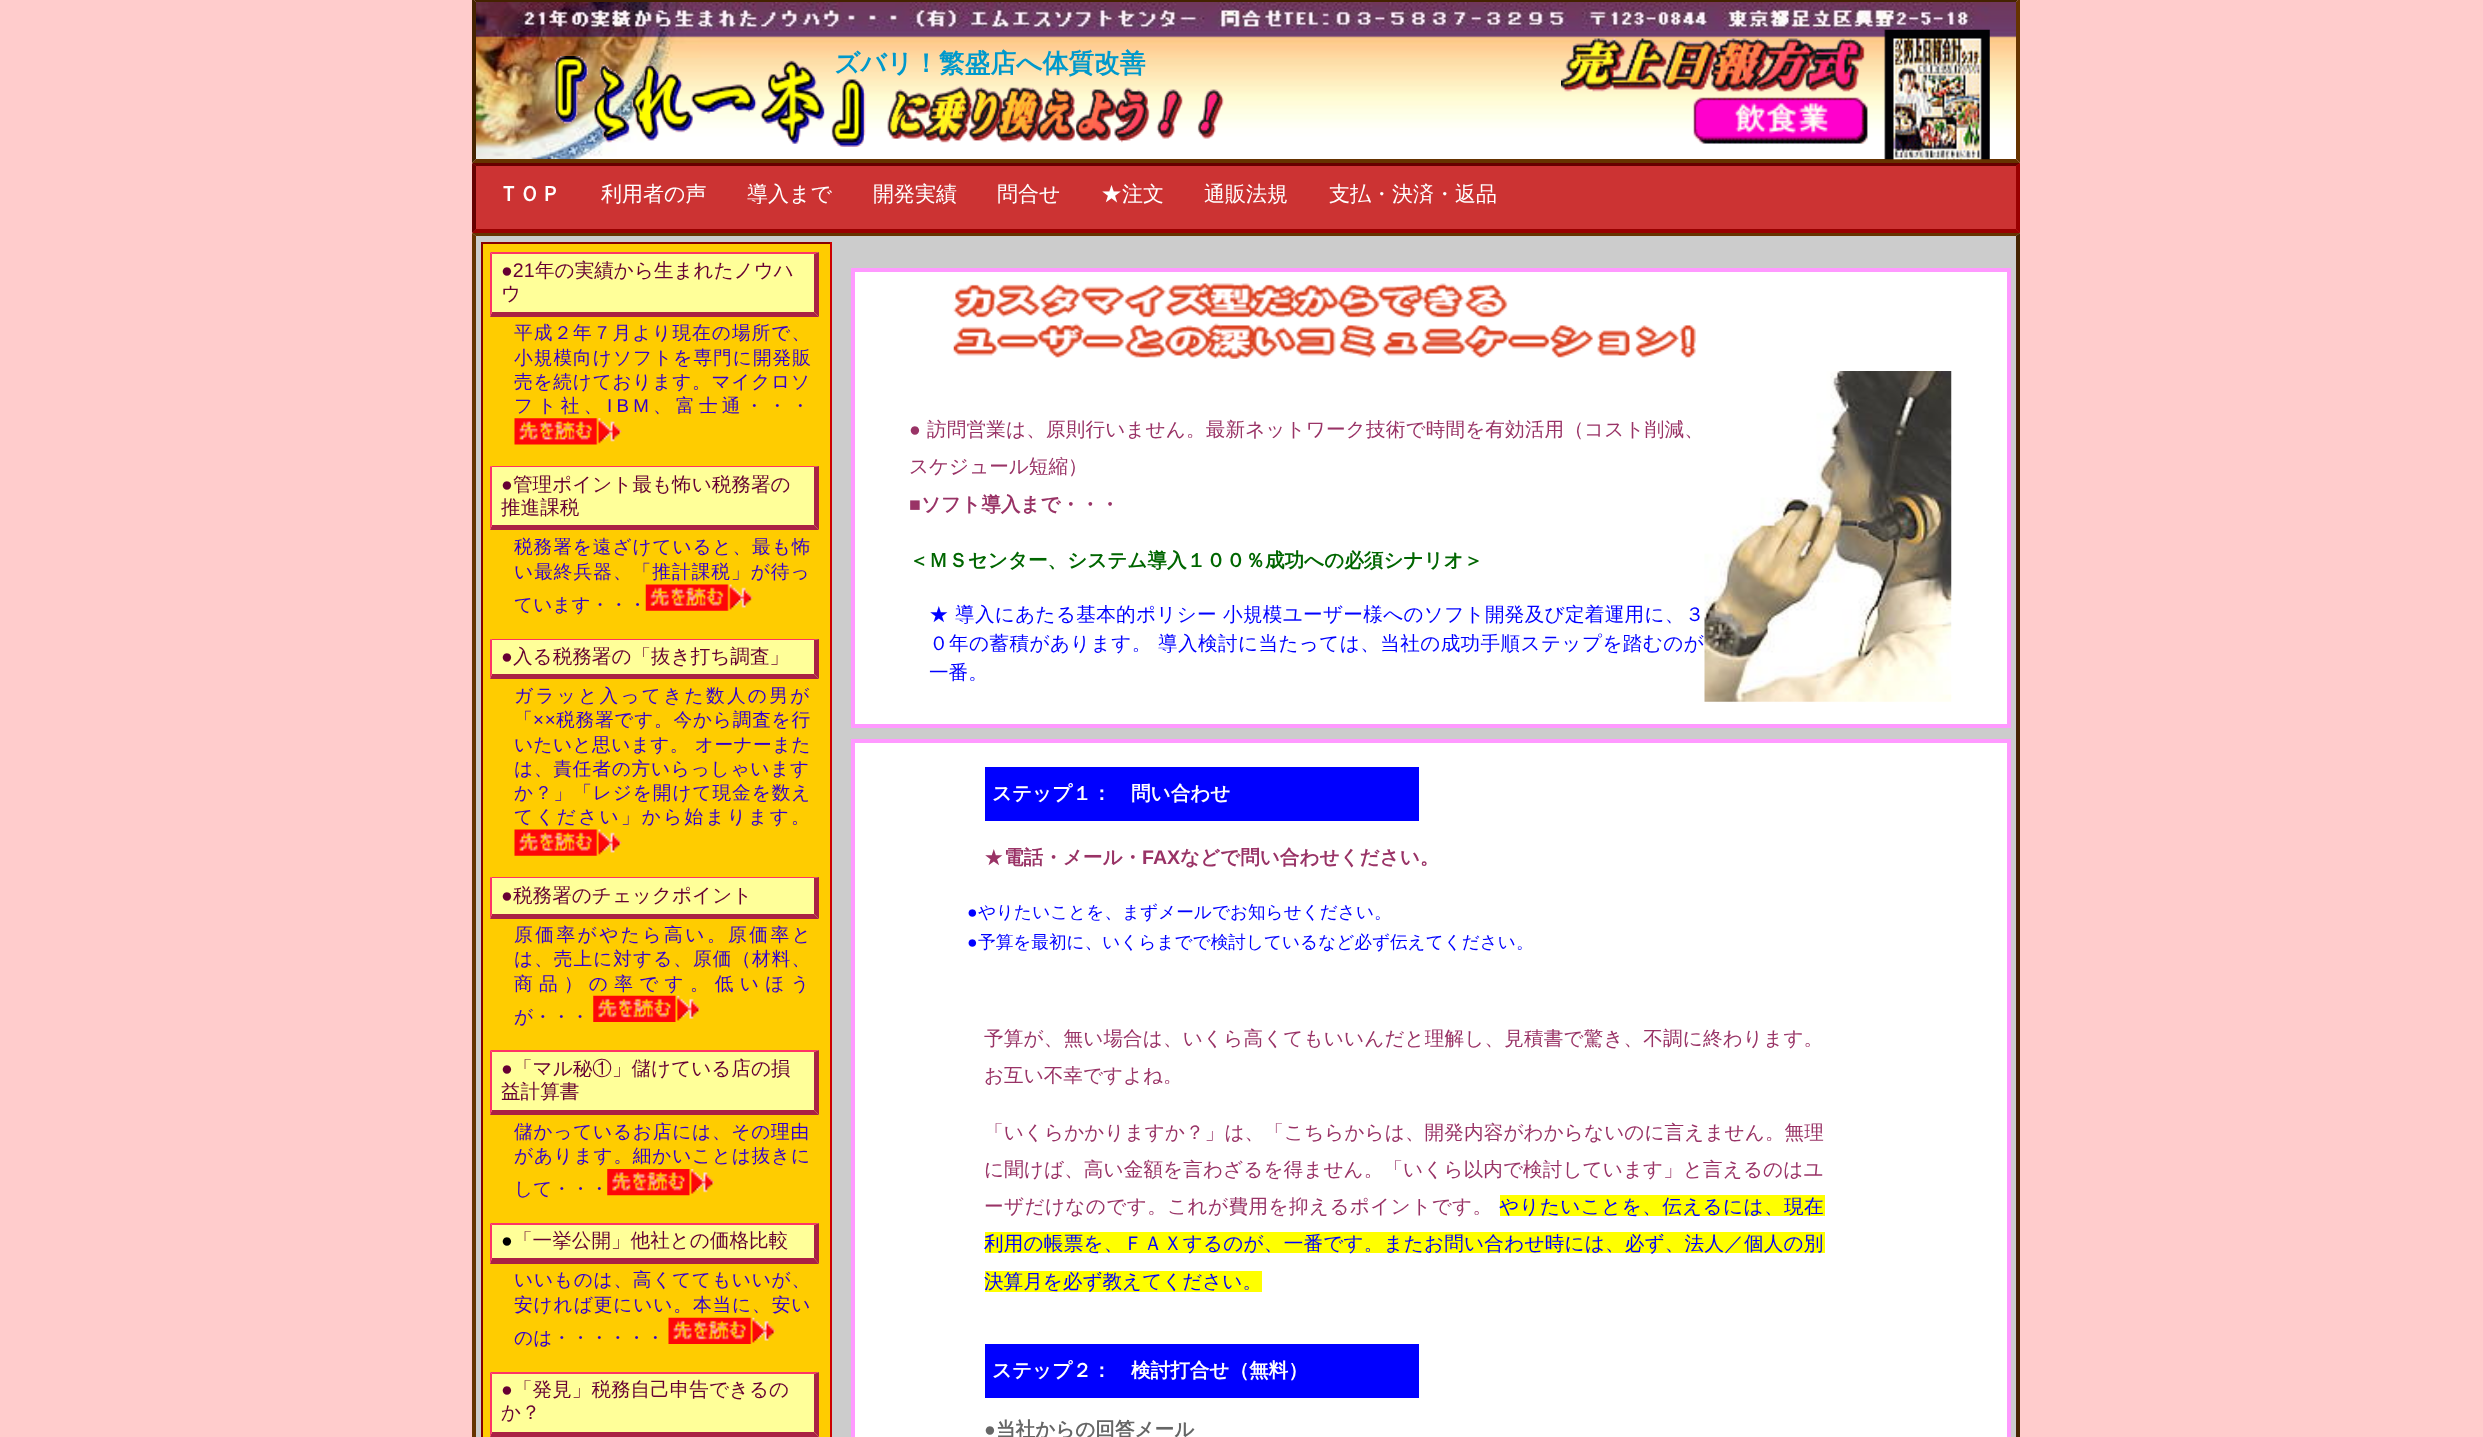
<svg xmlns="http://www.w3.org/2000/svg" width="2483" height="1437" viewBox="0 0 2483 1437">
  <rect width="100%" height="100%" fill="#fcc"/>
  <image x="476" y="2" width="1540" height="157" href="img/1.png"/>
  <path d="M472-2H2020L2016 2H476Z" fill="#420"/>
  <path d="M2020-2V163L2016 159V2Z" fill="#630"/>
  <path d="M2020 163H472L476 159H2016Z" fill="#630"/>
  <path d="M472 163V-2L476 2V159Z" fill="#420"/>
  <image x="1561" y="29" width="429" height="131" href="img/2.png"/>
  <path d="M473 163h1547v70H473z" fill="#c33"/>
  <path d="M472 163H2020L2016 166H476Z" fill="#600"/>
  <path d="M2020 163V233L2016 229V166Z" fill="#900"/>
  <path d="M2020 233H472L476 229H2016Z" fill="#900"/>
  <path d="M472 233V163L476 166V229Z" fill="#600"/>
  <path d="M473 233h1547v1204H473z" fill="#ccc"/>
  <path d="M472 233H2020L2016 236H476Z" fill="#630"/>
  <path d="M2020 233V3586L2016 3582V236Z" fill="#420"/>
  <path d="M472 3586V233L476 236V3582Z" fill="#630"/>
  <path d="M483 244h347v1193H483z" fill="#fc0"/>
  <path d="M481 242h350v2H481z" fill="#800"/>
  <path d="M830 242h2v1195H830z" fill="#c00"/>
  <path d="M481 242h2v1195H481z" fill="#800"/>
  <path d="M490 252h329v65H490z" fill="#ff9"/>
  <path d="M490 252H819L814 254H492Z" fill="#f36"/>
  <path d="M819 252V317L814 312V254Z" fill="#a24"/>
  <path d="M819 317H490L492 312H814Z" fill="#a24"/>
  <path d="M490 317V252L492 254V312Z" fill="#f36"/>
  <image x="514" y="418" width="108" height="27" href="img/4.png"/>
  <path d="M490 466h329v64H490z" fill="#ff9"/>
  <path d="M490 466H819L814 467H492Z" fill="#f36"/>
  <path d="M819 466V530L814 525V467Z" fill="#a24"/>
  <path d="M819 530H490L492 525H814Z" fill="#a24"/>
  <path d="M490 530V466L492 467V525Z" fill="#f36"/>
  <image x="645" y="584" width="108" height="27" href="img/5.png"/>
  <path d="M490 639h329v40H490z" fill="#ff9"/>
  <path d="M490 639H819L814 640H492Z" fill="#f36"/>
  <path d="M819 639V679L814 674V640Z" fill="#a24"/>
  <path d="M819 679H490L492 674H814Z" fill="#a24"/>
  <path d="M490 679V639L492 640V674Z" fill="#f36"/>
  <image x="514" y="829" width="108" height="27" href="img/6.png"/>
  <path d="M490 877h329v42H490z" fill="#ff9"/>
  <path d="M490 877H819L814 878H492Z" fill="#f36"/>
  <path d="M819 877V919L814 914V878Z" fill="#a24"/>
  <path d="M819 919H490L492 914H814Z" fill="#a24"/>
  <path d="M490 919V877L492 878V914Z" fill="#f36"/>
  <image x="593" y="995" width="107" height="27" href="img/7.png"/>
  <path d="M490 1050h329v65H490z" fill="#ff9"/>
  <path d="M490 1050H819L814 1052H492Z" fill="#f36"/>
  <path d="M819 1050V1115L814 1110V1052Z" fill="#a24"/>
  <path d="M819 1115H490L492 1110H814Z" fill="#a24"/>
  <path d="M490 1115V1050L492 1052V1110Z" fill="#f36"/>
  <image x="607" y="1169" width="107" height="27" href="img/8.png"/>
  <path d="M490 1223h329v41H490z" fill="#ff9"/>
  <path d="M490 1223H819L814 1225H492Z" fill="#f36"/>
  <path d="M819 1223V1264L814 1258V1225Z" fill="#a24"/>
  <path d="M819 1264H490L492 1258H814Z" fill="#a24"/>
  <path d="M490 1264V1223L492 1225V1258Z" fill="#f36"/>
  <image x="668" y="1317" width="108" height="27" href="img/9.png"/>
  <path d="M490 1372h329v65H490z" fill="#ff9"/>
  <path d="M490 1372H819L814 1374H492Z" fill="#f36"/>
  <path d="M819 1372V1437L814 1432V1374Z" fill="#a24"/>
  <path d="M819 1437H490L492 1432H814Z" fill="#a24"/>
  <path d="M490 1437V1372L492 1374V1432Z" fill="#f36"/>
  <path d="M853 270h1156v456H853z" fill="#fff" stroke="#f9f" stroke-width="4"/>
  <image x="953" y="283" width="743" height="76" href="img/10.png"/>
  <image x="1704" y="371" width="248" height="331" href="img/11.png"/>
  <path d="M853 741h1156v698H853z" fill="#fff" stroke="#f9f" stroke-width="4"/>
  <path d="M985 767h434v54H985z" fill="#00f"/>
  <path d="M1500 1195h325v21H1500z" fill="#ff0"/>
  <path d="M985 1232h840v21H985z" fill="#ff0"/>
  <path d="M985 1271h277v21H985z" fill="#ff0"/>
  <path d="M985 1344h434v54H985z" fill="#00f"/>
  <text x="834" y="72" font-family="WenQuanYi Zen Hei" font-size="25.75" font-weight="bold" fill="#09c">ズバリ！繁盛店へ体質改善</text>
  <image x="554" y="56" width="670" height="91" href="img/3.png"/>
  <text x="498" y="201" font-family="WenQuanYi Zen Hei" font-size="21" font-weight="bold" fill="#fff">ＴＯＰ</text>
  <g font-family="WenQuanYi Zen Hei" font-size="21" font-weight="500" fill="#fff">
    <text x="601" y="201">利用者の声</text>
    <text x="747" y="201">導入まで</text>
    <text x="873" y="201">開発実績</text>
    <text x="997" y="201">問合せ</text>
    <text x="1101" y="201">★注文</text>
    <text x="1204" y="201">通販法規</text>
    <text x="1329" y="201">支払・決済・返品</text>
  </g>
  <text x="501" y="277" font-family="Liberation Sans" font-size="19.6" fill="#603">●21</text>
  <g font-family="WenQuanYi Zen Hei" font-size="19.6" font-weight="500" fill="#603">
    <text x="535" y="277">年の実績から生まれたノウハ</text>
    <text x="501" y="300">ウ</text>
  </g>
  <g font-family="WenQuanYi Zen Hei" font-size="18.7" font-weight="500" letter-spacing="1" fill="#30c">
    <text x="514" y="339">平成２年７月より現在の場所で、</text>
    <text x="514" y="364">小規模向けソフトを専門に開発販</text>
  </g>
  <text x="514" y="388" font-family="WenQuanYi Zen Hei" font-size="18.7" font-weight="500" letter-spacing="0.75" fill="#30c">売を続けております。マイクロソ</text>
  <text x="514" y="412" font-family="WenQuanYi Zen Hei" font-size="18.7" font-weight="500" letter-spacing="4.25" fill="#30c">フト社、</text>
  <text x="607" y="412" font-family="Liberation Sans" font-size="18.7" letter-spacing="4.25" fill="#30c">IBM</text>
  <text x="653" y="412" font-family="WenQuanYi Zen Hei" font-size="18.7" font-weight="500" letter-spacing="4.25" fill="#30c">、富士通・・・</text>
  <text x="501" y="491" font-family="Liberation Sans" font-size="19.6" fill="#603">●</text>
  <g font-family="WenQuanYi Zen Hei" font-size="19.6" font-weight="500" fill="#603">
    <text x="513" y="491">管理ポイント最も怖い税務署の</text>
    <text x="501" y="514">推進課税</text>
  </g>
  <text x="514" y="553" font-family="WenQuanYi Zen Hei" font-size="18.7" font-weight="500" letter-spacing="0.9" fill="#30c">税務署を遠ざけていると、最も怖</text>
  <text x="514" y="578" font-family="WenQuanYi Zen Hei" font-size="18.7" font-weight="500" letter-spacing="1" fill="#30c">い最終兵器、「推計課税」が待っ</text>
  <text x="514" y="611" font-family="WenQuanYi Zen Hei" font-size="18.7" font-weight="500" fill="#30c">ています・・・</text>
  <text x="501" y="663" font-family="Liberation Sans" font-size="19.6" fill="#603">●</text>
  <text x="513" y="663" font-family="WenQuanYi Zen Hei" font-size="19.6" font-weight="500" fill="#603">入る税務署の「抜き打ち調査」</text>
  <text x="514" y="702" font-family="WenQuanYi Zen Hei" font-size="18.7" font-weight="500" letter-spacing="2.25" fill="#30c">ガラッと入ってきた数人の男が</text>
  <text x="514" y="726" font-family="WenQuanYi Zen Hei" font-size="18.7" font-weight="500" letter-spacing="0.75" fill="#30c">「</text>
  <text x="533" y="726" font-family="Liberation Sans" font-size="18.7" letter-spacing="0.75" fill="#30c">××</text>
  <text x="556" y="726" font-family="WenQuanYi Zen Hei" font-size="18.7" font-weight="500" letter-spacing="0.75" fill="#30c">税務署です。今から調査を行</text>
  <text x="514" y="751" font-family="WenQuanYi Zen Hei" font-size="18.7" font-weight="500" letter-spacing="0.4" fill="#30c">いたいと思います。 オーナーまた</text>
  <text x="514" y="775" font-family="WenQuanYi Zen Hei" font-size="18.7" font-weight="500" letter-spacing="0.75" fill="#30c">は、責任者の方いらっしゃいます</text>
  <text x="514" y="799" font-family="WenQuanYi Zen Hei" font-size="18.7" font-weight="500" letter-spacing="0.9" fill="#30c">か？」「レジを開けて現金を数え</text>
  <text x="514" y="823" font-family="WenQuanYi Zen Hei" font-size="18.7" font-weight="500" letter-spacing="2.25" fill="#30c">てください」から始まります。</text>
  <text x="501" y="902" font-family="Liberation Sans" font-size="19.6" fill="#603">●</text>
  <text x="513" y="902" font-family="WenQuanYi Zen Hei" font-size="19.6" font-weight="500" fill="#603">税務署のチェックポイント</text>
  <text x="514" y="941" font-family="WenQuanYi Zen Hei" font-size="18.7" font-weight="500" letter-spacing="2.5" fill="#30c">原価率がやたら高い。原価率と</text>
  <text x="514" y="965" font-family="WenQuanYi Zen Hei" font-size="18.7" font-weight="500" letter-spacing="1" fill="#30c">は、売上に対する、原価（材料、</text>
  <text x="514" y="990" font-family="WenQuanYi Zen Hei" font-size="18.7" font-weight="500" letter-spacing="6.25" fill="#30c">商品）の率です。低いほう</text>
  <text x="514" y="1023" font-family="WenQuanYi Zen Hei" font-size="18.7" font-weight="500" fill="#30c">が・・・</text>
  <text x="501" y="1075" font-family="Liberation Sans" font-size="19.6" fill="#603">●</text>
  <g font-family="WenQuanYi Zen Hei" font-size="19.6" font-weight="500" fill="#603">
    <text x="513" y="1075">「マル秘①」儲けている店の損</text>
    <text x="501" y="1098">益計算書</text>
  </g>
  <g font-family="WenQuanYi Zen Hei" font-size="18.7" font-weight="500" letter-spacing="0.75" fill="#30c">
    <text x="514" y="1138">儲かっているお店には、その理由</text>
    <text x="514" y="1162">があります。細かいことは抜きに</text>
  </g>
  <text x="514" y="1195" font-family="WenQuanYi Zen Hei" font-size="18.7" font-weight="500" fill="#30c">して・・・</text>
  <text x="501" y="1247" font-family="Liberation Sans" font-size="19.6" fill="#000">●</text>
  <text x="513" y="1247" font-family="WenQuanYi Zen Hei" font-size="19.6" font-weight="500" fill="#603">「一挙公開」他社との価格比較</text>
  <text x="514" y="1286" font-family="WenQuanYi Zen Hei" font-size="18.7" font-weight="500" letter-spacing="0.75" fill="#30c">いいものは、高くててもいいが、</text>
  <text x="514" y="1311" font-family="WenQuanYi Zen Hei" font-size="18.7" font-weight="500" letter-spacing="0.9" fill="#30c">安ければ更にいい。本当に、安い</text>
  <text x="514" y="1344" font-family="WenQuanYi Zen Hei" font-size="18.7" font-weight="500" fill="#30c">のは・・・・・・</text>
  <text x="501" y="1396" font-family="Liberation Sans" font-size="19.6" fill="#603">●</text>
  <g font-family="WenQuanYi Zen Hei" font-size="19.6" font-weight="500" fill="#603">
    <text x="513" y="1396">「発見」税務自己申告できるの</text>
    <text x="501" y="1419">か？</text>
  </g>
  <text x="909" y="436" font-family="Liberation Sans" font-size="19.6" letter-spacing="0.15" fill="#936">●</text>
  <text x="927" y="436" font-family="WenQuanYi Zen Hei" font-size="19.6" font-weight="500" letter-spacing="0.15" fill="#936">訪問営業は、原則行いません。最新ネットワーク技術で時間を有効活用（コスト削減、</text>
  <text x="909" y="473" font-family="WenQuanYi Zen Hei" font-size="19.6" font-weight="500" fill="#936">スケジュール短縮）</text>
  <text x="909" y="511" font-family="Liberation Sans" font-size="19.6" font-weight="bold" fill="#936">■</text>
  <text x="921" y="511" font-family="WenQuanYi Zen Hei" font-size="19.6" font-weight="bold" fill="#936">ソフト導入まで・・・</text>
  <text x="909" y="567" font-family="WenQuanYi Zen Hei" font-size="19.6" font-weight="bold" fill="#060">＜ＭＳセンター、システム導入１００％成功への必須シナリオ＞</text>
  <text x="929" y="621" font-family="WenQuanYi Zen Hei" font-size="19.6" font-weight="500" letter-spacing="0.3" fill="#00f">★ 導入にあたる基本的ポリシー 小規模ユーザー様へのソフト開発及び定着運用に、３</text>
  <text x="929" y="650" font-family="WenQuanYi Zen Hei" font-size="19.6" font-weight="500" letter-spacing="0.4" fill="#00f">０年の蓄積があります。 導入検討に当たっては、当社の成功手順ステップを踏むのが</text>
  <text x="929" y="679" font-family="WenQuanYi Zen Hei" font-size="19.6" font-weight="500" fill="#00f">一番。</text>
  <text x="992" y="800" font-family="WenQuanYi Zen Hei" font-size="19.6" font-weight="bold" fill="#fff">ステップ１：　問い合わせ</text>
  <text x="984" y="864" font-family="WenQuanYi Zen Hei" font-size="19.6" font-weight="500" fill="#936">★</text>
  <text x="1004" y="864" font-family="WenQuanYi Zen Hei" font-size="19.6" font-weight="bold" fill="#936">電話・メール・</text>
  <text x="1142" y="864" font-family="Liberation Sans" font-size="19.6" font-weight="bold" fill="#936">FAX</text>
  <text x="1180" y="864" font-family="WenQuanYi Zen Hei" font-size="19.6" font-weight="bold" fill="#936">などで問い合わせください。</text>
  <text x="967" y="918" font-family="Liberation Sans" font-size="17.65" fill="#00f">●</text>
  <text x="978" y="918" font-family="WenQuanYi Zen Hei" font-size="17.65" font-weight="500" fill="#00f">やりたいことを、まずメールでお知らせください。</text>
  <text x="967" y="948" font-family="Liberation Sans" font-size="17.65" fill="#00f">●</text>
  <text x="978" y="948" font-family="WenQuanYi Zen Hei" font-size="17.65" font-weight="500" fill="#00f">予算を最初に、いくらまでで検討しているなど必ず伝えてください。</text>
  <text x="984" y="1045" font-family="WenQuanYi Zen Hei" font-size="19.6" font-weight="500" letter-spacing="0.15" fill="#936">予算が、無い場合は、いくら高くてもいいんだと理解し、見積書で驚き、不調に終わります。</text>
  <text x="984" y="1082" font-family="WenQuanYi Zen Hei" font-size="19.6" font-weight="500" fill="#936">お互い不幸ですよね。</text>
  <g font-family="WenQuanYi Zen Hei" font-size="19.6" font-weight="500" letter-spacing="0.1" fill="#936">
    <text x="984" y="1139">「いくらかかりますか？」は、「こちらからは、開発内容がわからないのに言えません。無理</text>
    <text x="984" y="1176">に聞けば、高い金額を言わざるを得ません。「いくら以内で検討しています」と言えるのはユ</text>
  </g>
  <text x="984" y="1213" font-family="WenQuanYi Zen Hei" font-size="19.6" font-weight="500" letter-spacing="0.4" fill="#936">ーザだけなのです。これが費用を抑えるポイントです。</text>
  <text x="1499" y="1213" font-family="WenQuanYi Zen Hei" font-size="19.6" font-weight="500" letter-spacing="0.4" fill="#00f">やりたいことを、伝えるには、現在</text>
  <text x="984" y="1250" font-family="WenQuanYi Zen Hei" font-size="19.6" font-weight="500" letter-spacing="0.2" fill="#00f">利用の帳票を、ＦＡＸするのが、一番です。またお問い合わせ時には、必ず、法人／個人の別</text>
  <text x="984" y="1288" font-family="WenQuanYi Zen Hei" font-size="19.6" font-weight="500" fill="#00f">決算月を必ず教えてください。</text>
  <text x="992" y="1377" font-family="WenQuanYi Zen Hei" font-size="19.6" font-weight="bold" fill="#fff">ステップ２：　検討打合せ（無料）</text>
  <text x="984" y="1436" font-family="Liberation Sans" font-size="19.6" fill="#666">●</text>
  <text x="996" y="1436" font-family="WenQuanYi Zen Hei" font-size="19.6" font-weight="bold" fill="#666">当社からの回答メール</text>
</svg>
